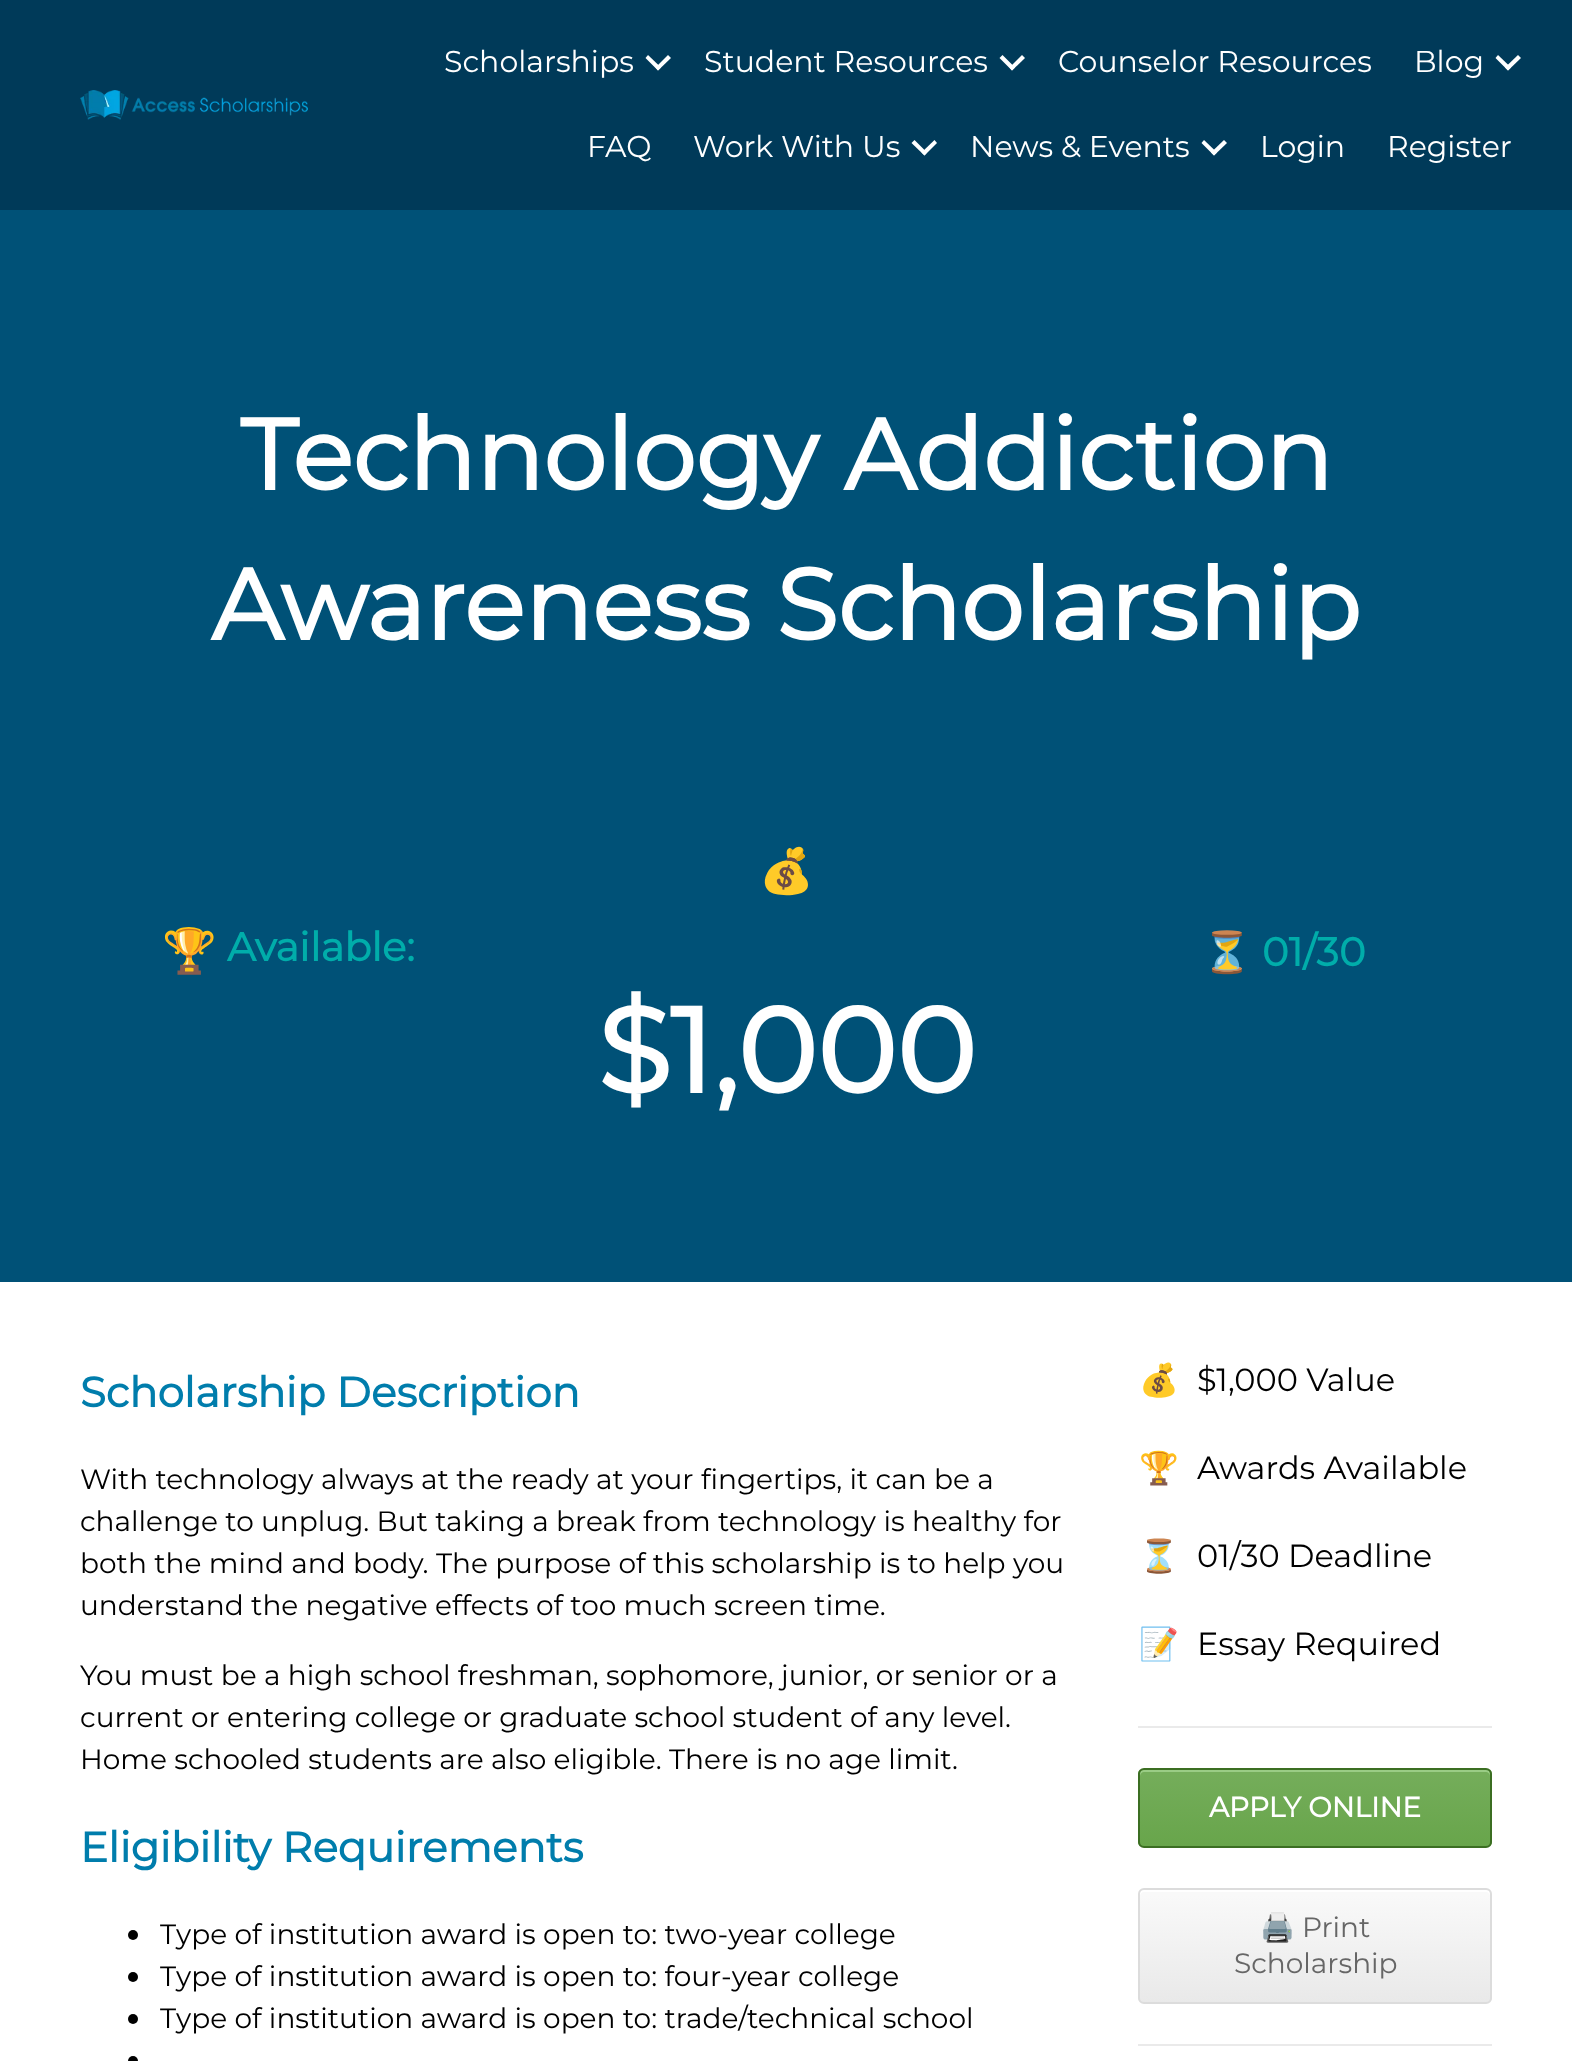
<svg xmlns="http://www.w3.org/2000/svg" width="1572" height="2061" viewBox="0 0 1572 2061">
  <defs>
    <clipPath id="clip1"><rect x="1138" y="1768" width="354" height="80" rx="6"/></clipPath>
    <linearGradient id="g1" gradientUnits="userSpaceOnUse" x1="1315" y1="1770" x2="1315" y2="1846"><stop offset="0.05" stop-color="#74ad5a"/><stop offset="1" stop-color="#68a54b"/></linearGradient>
    <clipPath id="clip2"><rect x="1138" y="1888" width="354" height="116" rx="6"/></clipPath>
    <linearGradient id="g2" gradientUnits="userSpaceOnUse" x1="1315" y1="1890" x2="1315" y2="2002"><stop offset="0.05" stop-color="#f9f9f9"/><stop offset="1" stop-color="#e9e9e9"/></linearGradient>
  </defs>
  <rect width="100%" height="100%" fill="#fff"/>
  <path d="M0 0h1572v210H0z" fill="#003a59"/>
  <image x="80" y="90" width="228" height="30" href="img/1.png"/>
  <path d="M668 55L671 58L658 70.5L655.5 67.5Z" fill="#fff"/>
  <path d="M648 55L661 67.5L658 70.5L645.5 58Z" fill="#fff"/>
  <path d="M1022 55L1025 58L1012 70.5L1009.5 67.5Z" fill="#fff"/>
  <path d="M1002.5 55L1015 67.5L1012 70.5L999.5 58Z" fill="#fff"/>
  <path d="M1518 55L1521 58L1508 70.5L1505 67.5Z" fill="#fff"/>
  <path d="M1498 55L1511 67.5L1508 70.5L1495.5 58Z" fill="#fff"/>
  <path d="M934.5 140L937 143L924.5 155.5L921.5 152.5Z" fill="#fff"/>
  <path d="M914.5 140L927 152.5L924.5 155.5L911.5 143Z" fill="#fff"/>
  <path d="M1224 140L1227 143L1214 155.5L1211 152.5Z" fill="#fff"/>
  <path d="M1204 140L1217 152.5L1214 155.5L1201.5 143Z" fill="#fff"/>
  <path d="M0 210h1572v1072H0z" fill="#005177"/>
  <circle cx="133" cy="1935" r="5" fill="#000"/>
  <circle cx="133" cy="1977" r="5" fill="#000"/>
  <circle cx="133" cy="2019" r="5" fill="#000"/>
  <circle cx="133" cy="2061" r="5" fill="#000"/>
  <path d="M1138 1726h354v2H1138z" fill="#eaeaea"/>
  <g clip-path="url(#clip1)">
    <path d="M1138 1770h354v76H1138z" fill="url(#g1)"/>
  </g>
  <path d="M1144 1772H1486C1488 1772 1490 1774 1490 1776C1490 1773 1490 1770 1486 1770H1143C1140 1771 1140 1773 1140 1776C1140 1774 1142 1772 1144 1772Z" fill="#9acc85"/>
  <rect x="1139" y="1769" width="352" height="78" rx="5" fill="none" stroke="#3b6e22" stroke-width="2"/>
  <g clip-path="url(#clip2)">
    <path d="M1138 1890h354v112H1138z" fill="url(#g2)"/>
  </g>
  <path d="M1144 1892H1486C1488 1892 1490 1894 1490 1896C1490 1893 1490 1890 1486 1890H1143C1140 1891 1140 1893 1140 1896C1140 1894 1142 1892 1144 1892Z" fill="#fff"/>
  <rect x="1139" y="1889" width="352" height="114" rx="5" fill="none" stroke="#dcdcdc" stroke-width="2"/>
  <path d="M1138 2044h354v2H1138z" fill="#eaeaea"/>
  <g font-family="Montserrat" font-size="30" font-weight="100" fill="#fff">
    <text x="444" y="72">Scholarships</text>
    <text x="704" y="72">Student Resources</text>
    <text x="1058" y="72">Counselor Resources</text>
    <text x="1414" y="72">Blog</text>
    <text x="587" y="157">FAQ</text>
    <text x="693" y="157">Work With Us</text>
    <text x="970" y="157">News &amp; Events</text>
    <text x="1260" y="157">Login</text>
    <text x="1387" y="157">Register</text>
  </g>
  <g font-family="Montserrat" font-size="100" font-weight="bold" fill="#fff">
    <text x="240" y="490">Technology Addiction</text>
    <text x="211" y="640">Awareness Scholarship</text>
  </g>
  <text x="162" y="966" font-family="Noto Color Emoji" font-size="44" font-weight="bold" fill="#00adaa">🏆</text>
  <text x="227" y="961" font-family="Montserrat" font-size="40" font-weight="bold" fill="#00adaa">Available:</text>
  <text x="759" y="886" font-family="Noto Color Emoji" font-size="44" font-weight="bold" fill="#fff">💰</text>
  <text x="597" y="1093" font-family="Montserrat" font-size="120" font-weight="bold" fill="#fff">$1,000</text>
  <text x="1202" y="966" font-family="Noto Color Emoji" font-size="40" font-weight="bold" fill="#00adaa">⏳</text>
  <text x="1262" y="966" font-family="Montserrat" font-size="40" font-weight="bold" fill="#00adaa">01/30</text>
  <text x="80" y="1407" font-family="Montserrat" font-size="42" font-weight="bold" fill="#007dac">Scholarship Description</text>
  <g font-family="Montserrat" font-size="28" font-weight="100" fill="#000">
    <text x="80" y="1489">With technology always at the ready at your fingertips, it can be a</text>
    <text x="80" y="1531">challenge to unplug. But taking a break from technology is healthy for</text>
    <text x="80" y="1573">both the mind and body. The purpose of this scholarship is to help you</text>
    <text x="80" y="1615">understand the negative effects of too much screen time.</text>
    <text x="80" y="1685">You must be a high school freshman, sophomore, junior, or senior or a</text>
    <text x="80" y="1727">current or entering college or graduate school student of any level.</text>
    <text x="80" y="1769">Home schooled students are also eligible. There is no age limit.</text>
  </g>
  <text x="80" y="1862" font-family="Montserrat" font-size="42" font-weight="bold" fill="#007dac">Eligibility Requirements</text>
  <g font-family="Montserrat" font-size="28" font-weight="100" fill="#000">
    <text x="160" y="1944">Type of institution award is open to: two-year college</text>
    <text x="160" y="1986">Type of institution award is open to: four-year college</text>
    <text x="160" y="2028">Type of institution award is open to: trade/technical school</text>
  </g>
  <text x="1139" y="1391" font-family="Noto Color Emoji" font-size="32" fill="#000">💰</text>
  <text x="1197" y="1391" font-family="Montserrat" font-size="32" font-weight="100" fill="#000">$1,000 Value</text>
  <text x="1139" y="1479" font-family="Noto Color Emoji" font-size="32" fill="#000">🏆</text>
  <text x="1197" y="1479" font-family="Montserrat" font-size="32" font-weight="100" fill="#000">Awards Available</text>
  <text x="1139" y="1567" font-family="Noto Color Emoji" font-size="32" fill="#000">⏳</text>
  <text x="1197" y="1567" font-family="Montserrat" font-size="32" font-weight="100" fill="#000">01/30 Deadline</text>
  <text x="1139" y="1655" font-family="Noto Color Emoji" font-size="32" fill="#000">📝</text>
  <text x="1197" y="1655" font-family="Montserrat" font-size="32" font-weight="100" fill="#000">Essay Required</text>
  <text x="1209" y="1817" font-family="Montserrat" font-size="28" font-weight="bold" fill="#fff">APPLY ONLINE</text>
  <text x="1260" y="1937" font-family="Noto Color Emoji" font-size="28" fill="#666">🖨️</text>
  <g font-family="Montserrat" font-size="28" font-weight="100" fill="#666">
    <text x="1302" y="1937">Print</text>
    <text x="1234" y="1973">Scholarship</text>
  </g>
</svg>
